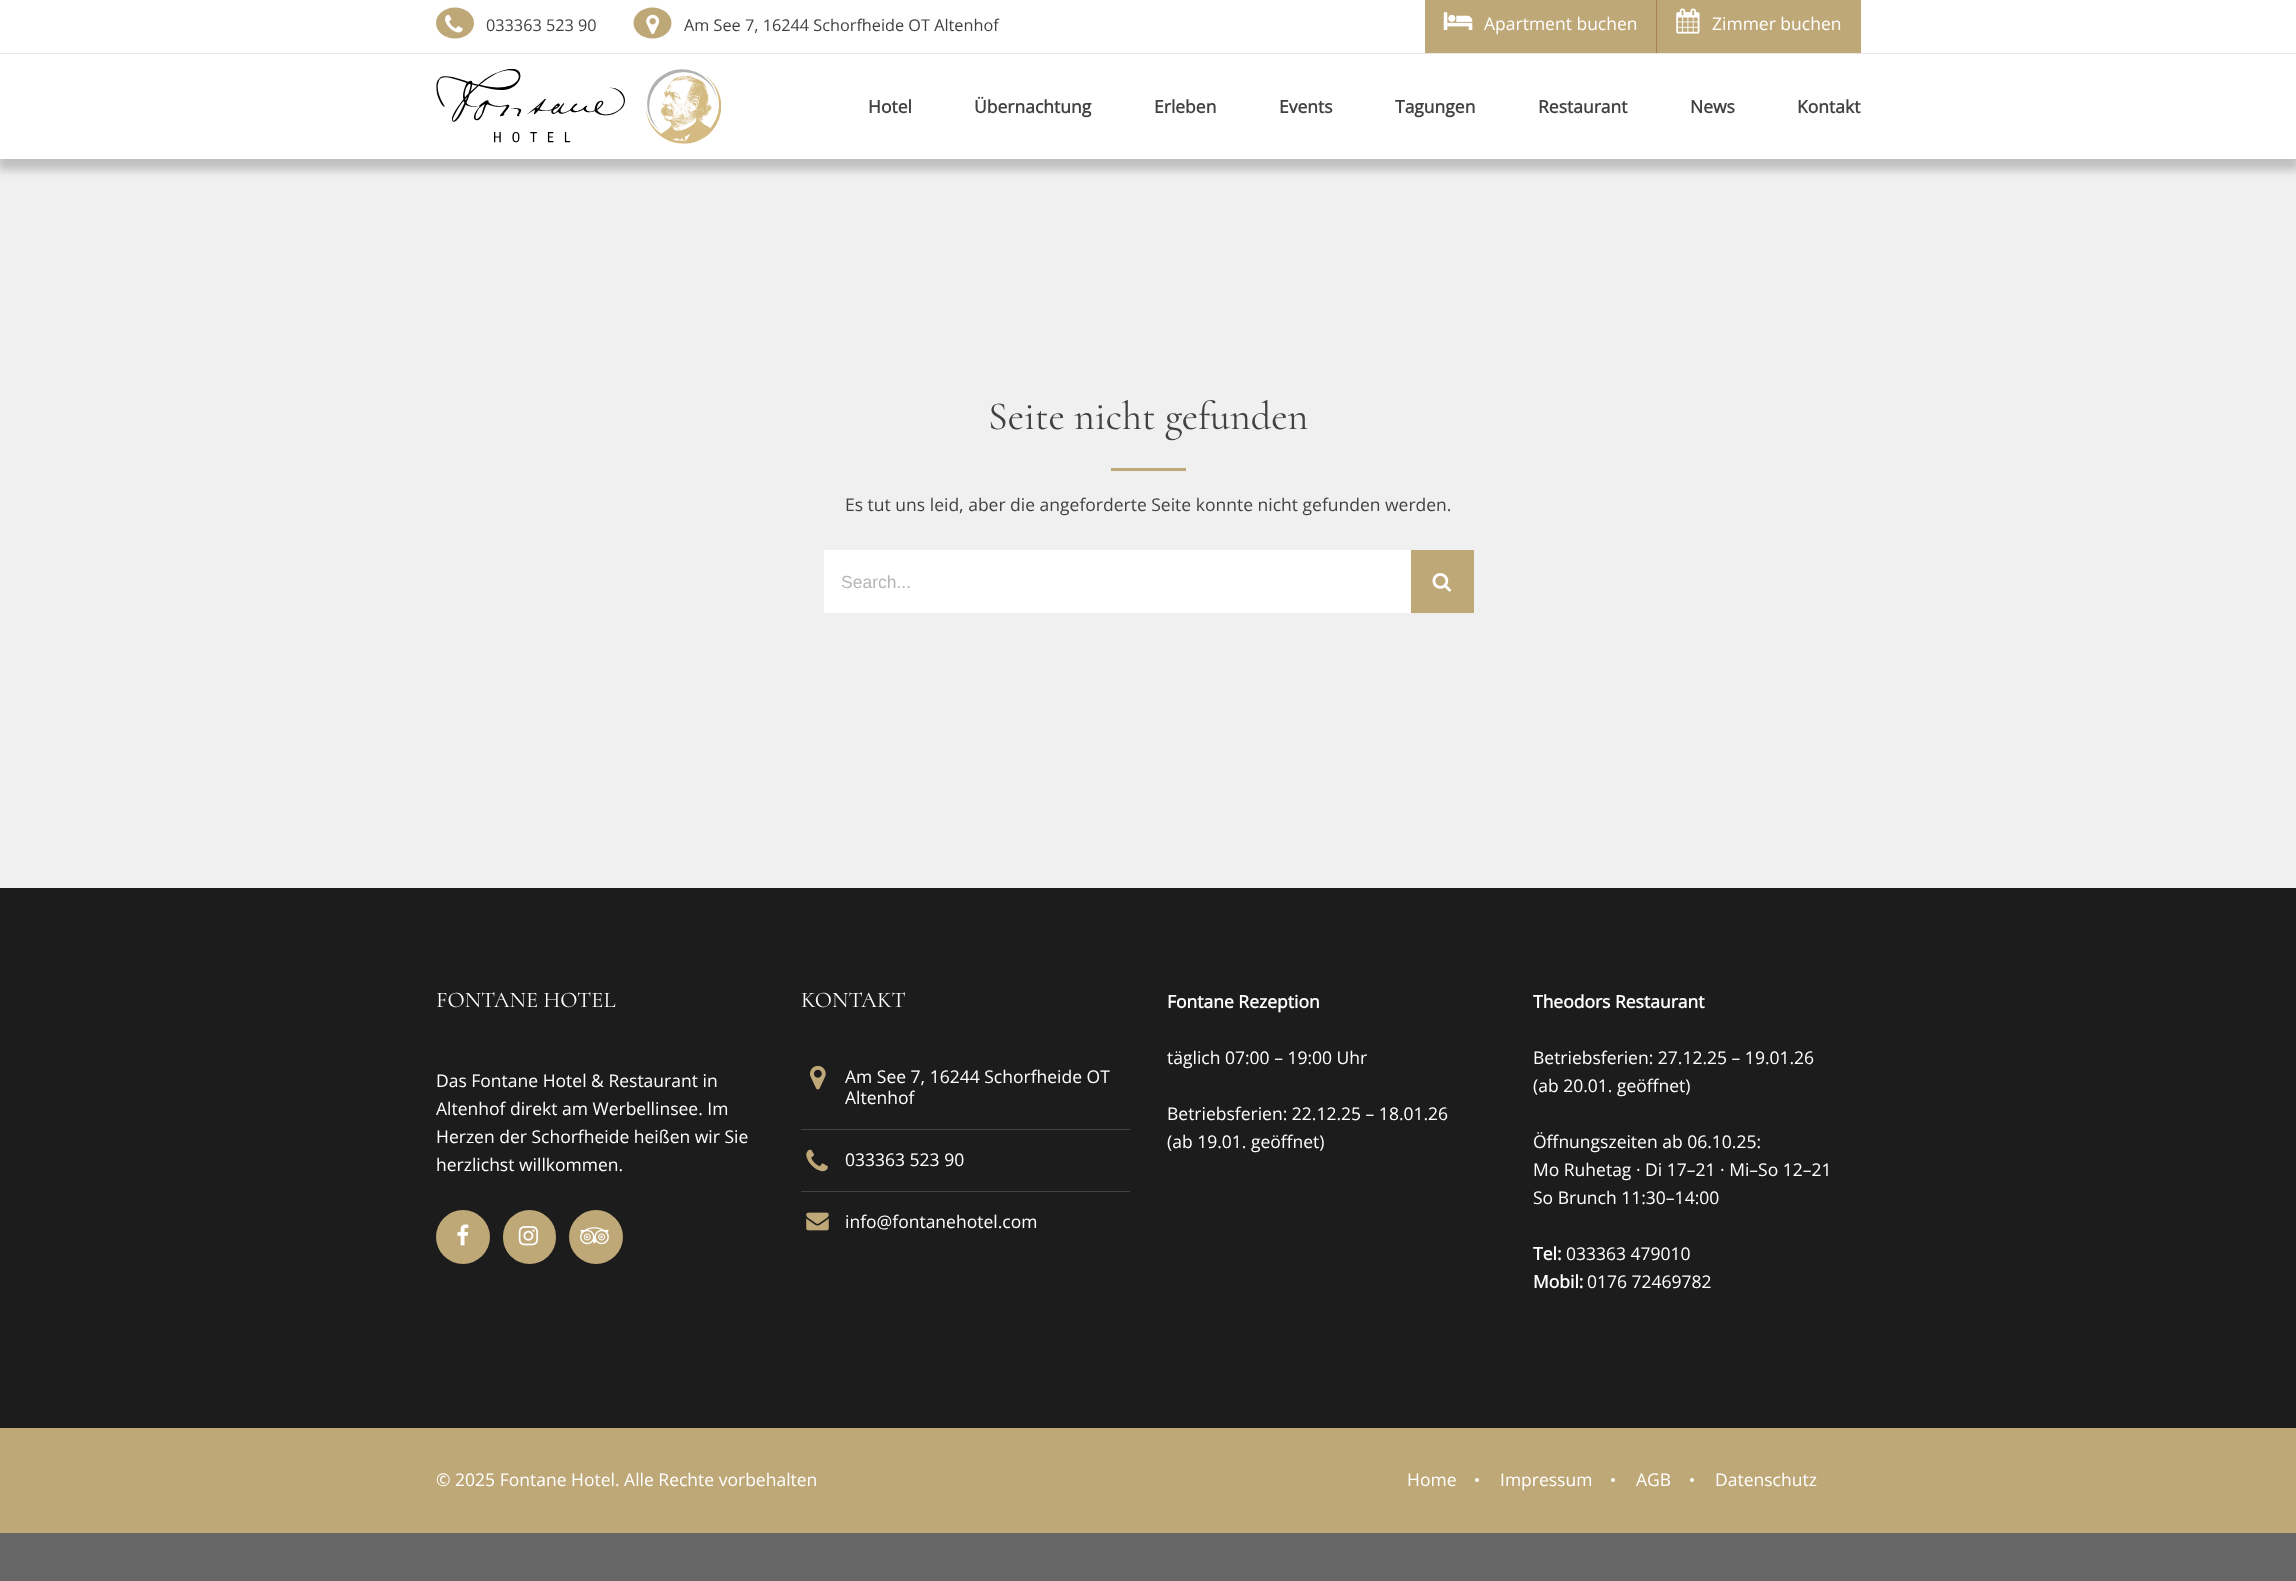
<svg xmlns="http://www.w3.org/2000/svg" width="2296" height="1581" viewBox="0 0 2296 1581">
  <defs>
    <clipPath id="clip1"><path d="M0 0H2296V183H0ZM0 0H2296V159H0Z" clip-rule="evenodd"/></clipPath>
  </defs>
  <rect width="100%" height="100%" fill="#666"/>
  <path d="M0 0h2296v159H0z" fill="#fff"/>
  <path d="M0 159h2296v729H0z" fill="#f0f0f0"/>
  <g clip-path="url(#clip1)">
    <path d="M-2 6h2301v164H-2z" fill="#00000033" filter="blur(4px)"/>
  </g>
  <path d="M0 53h2296v1H0z" fill="#e8e8e8"/>
  <ellipse cx="455" cy="23" rx="19" ry="15.5" fill="#bfa877"/>
  <image x="445" y="14" width="18" height="19" href="img/1.png"/>
  <ellipse cx="652.5" cy="23" rx="19" ry="15.5" fill="#bfa877"/>
  <image x="646" y="14" width="14" height="21" href="img/2.png"/>
  <path d="M1425 0h436v53H1425z" fill="#bfa877"/>
  <path d="M1656 0h1v53H1656z" fill="#a7805b"/>
  <image x="1443" y="12" width="30" height="18" href="img/3.png"/>
  <image x="1676" y="8" width="24" height="26" href="img/4.png"/>
  <image x="436" y="69" width="285" height="75" href="img/5.png"/>
  <path d="M1111 468h75v3H1111z" fill="#bfa877"/>
  <path d="M824 550h587v63H824z" fill="#fff"/>
  <path d="M1411 550h63v63H1411z" fill="#bfa877"/>
  <image x="1432" y="573" width="19" height="19" href="img/6.png"/>
  <path d="M0 888h2296v540H0z" fill="#1c1c1c"/>
  <circle cx="463" cy="1237" r="27" fill="#bfa877"/>
  <image x="457" y="1224" width="12" height="22" href="img/7.png"/>
  <rect x="503" y="1210" width="53" height="54" rx="26.5" fill="#bfa877"/>
  <image x="518" y="1226" width="21" height="20" href="img/8.png"/>
  <circle cx="596" cy="1237" r="27" fill="#bfa877"/>
  <image x="580" y="1227" width="29" height="18" href="img/9.png"/>
  <path d="M801 1129h329v1H801z" fill="#424242"/>
  <image x="810" y="1065" width="16" height="25" href="img/10.png"/>
  <path d="M801 1191h329v1H801z" fill="#424242"/>
  <image x="806" y="1149" width="22" height="23" href="img/11.png"/>
  <image x="806" y="1212" width="23" height="19" href="img/12.png"/>
  <path d="M0 1428h2296v105H0z" fill="#bfa877"/>
  <circle cx="1477" cy="1480" r="2" fill="#fff"/>
  <circle cx="1613" cy="1480" r="2" fill="#fff"/>
  <circle cx="1692" cy="1480" r="2" fill="#fff"/>
  <g font-family="Open Sans" font-size="16.25" fill="#424242">
    <text x="486" y="31">033363 523 90</text>
    <text x="684" y="31">Am See 7, 16244 Schorfheide OT Altenhof</text>
  </g>
  <g font-family="Open Sans" font-size="17.5" fill="#fff">
    <text x="1484" y="30">Apartment buchen</text>
    <text x="1712" y="30">Zimmer buchen</text>
  </g>
  <g font-family="Open Sans" font-size="17.5" font-weight="bold" fill="#424242">
    <text x="868" y="113">Hotel</text>
    <text x="974" y="113">Übernachtung</text>
    <text x="1154" y="113">Erleben</text>
    <text x="1279" y="113">Events</text>
    <text x="1395" y="113">Tagungen</text>
    <text x="1538" y="113">Restaurant</text>
    <text x="1690" y="113">News</text>
    <text x="1797" y="113">Kontakt</text>
  </g>
  <text x="988" y="429" font-family="Cormorant" font-size="40" fill="#424242">Seite nicht gefunden</text>
  <text x="845" y="511" font-family="Open Sans" font-size="17.5" fill="#424242">Es tut uns leid, aber die angeforderte Seite konnte nicht gefunden werden.</text>
  <text x="841" y="588" font-family="Liberation Sans" font-size="17.5" fill="#b6b6b6">Search...</text>
  <text x="436" y="1007" font-family="Cormorant" font-size="22.5" fill="#fff">FONTANE HOTEL</text>
  <g font-family="Open Sans" font-size="17.5" fill="#fff">
    <text x="436" y="1087">Das Fontane Hotel &amp; Restaurant in</text>
    <text x="436" y="1115">Altenhof direkt am Werbellinsee. Im</text>
    <text x="436" y="1143">Herzen der Schorfheide heißen wir Sie</text>
    <text x="436" y="1171">herzlichst willkommen.</text>
  </g>
  <text x="801" y="1007" font-family="Cormorant" font-size="22.5" fill="#fff">KONTAKT</text>
  <g font-family="Open Sans" font-size="17.5" fill="#fff">
    <text x="845" y="1083">Am See 7, 16244 Schorfheide OT</text>
    <text x="845" y="1104">Altenhof</text>
    <text x="845" y="1166">033363 523 90</text>
    <text x="845" y="1228">info@fontanehotel.com</text>
  </g>
  <text x="1167" y="1008" font-family="Open Sans" font-size="17.5" font-weight="bold" fill="#fff">Fontane Rezeption</text>
  <g font-family="Open Sans" font-size="17.5" fill="#fff">
    <text x="1167" y="1064">täglich 07:00 – 19:00 Uhr</text>
    <text x="1167" y="1120">Betriebsferien: 22.12.25 – 18.01.26</text>
    <text x="1167" y="1148">(ab 19.01. geöffnet)</text>
  </g>
  <text x="1533" y="1008" font-family="Open Sans" font-size="17.5" font-weight="bold" fill="#fff">Theodors Restaurant</text>
  <g font-family="Open Sans" font-size="17.5" fill="#fff">
    <text x="1533" y="1064">Betriebsferien: 27.12.25 – 19.01.26</text>
    <text x="1533" y="1092">(ab 20.01. geöffnet)</text>
    <text x="1533" y="1148">Öffnungszeiten ab 06.10.25:</text>
    <text x="1533" y="1176">Mo Ruhetag · Di 17–21 · Mi–So 12–21</text>
    <text x="1533" y="1204">So Brunch 11:30–14:00</text>
  </g>
  <text x="1533" y="1260" font-family="Open Sans" font-size="17.5" font-weight="bold" fill="#fff">Tel:</text>
  <text x="1566" y="1260" font-family="Open Sans" font-size="17.5" fill="#fff">033363 479010</text>
  <text x="1533" y="1288" font-family="Open Sans" font-size="17.5" font-weight="bold" fill="#fff">Mobil:</text>
  <g font-family="Open Sans" font-size="17.5" fill="#fff">
    <text x="1587" y="1288">0176 72469782</text>
    <text x="436" y="1486">© 2025 Fontane Hotel. Alle Rechte vorbehalten</text>
    <text x="1407" y="1486">Home</text>
    <text x="1500" y="1486">Impressum</text>
    <text x="1636" y="1486">AGB</text>
    <text x="1715" y="1486">Datenschutz</text>
  </g>
</svg>
